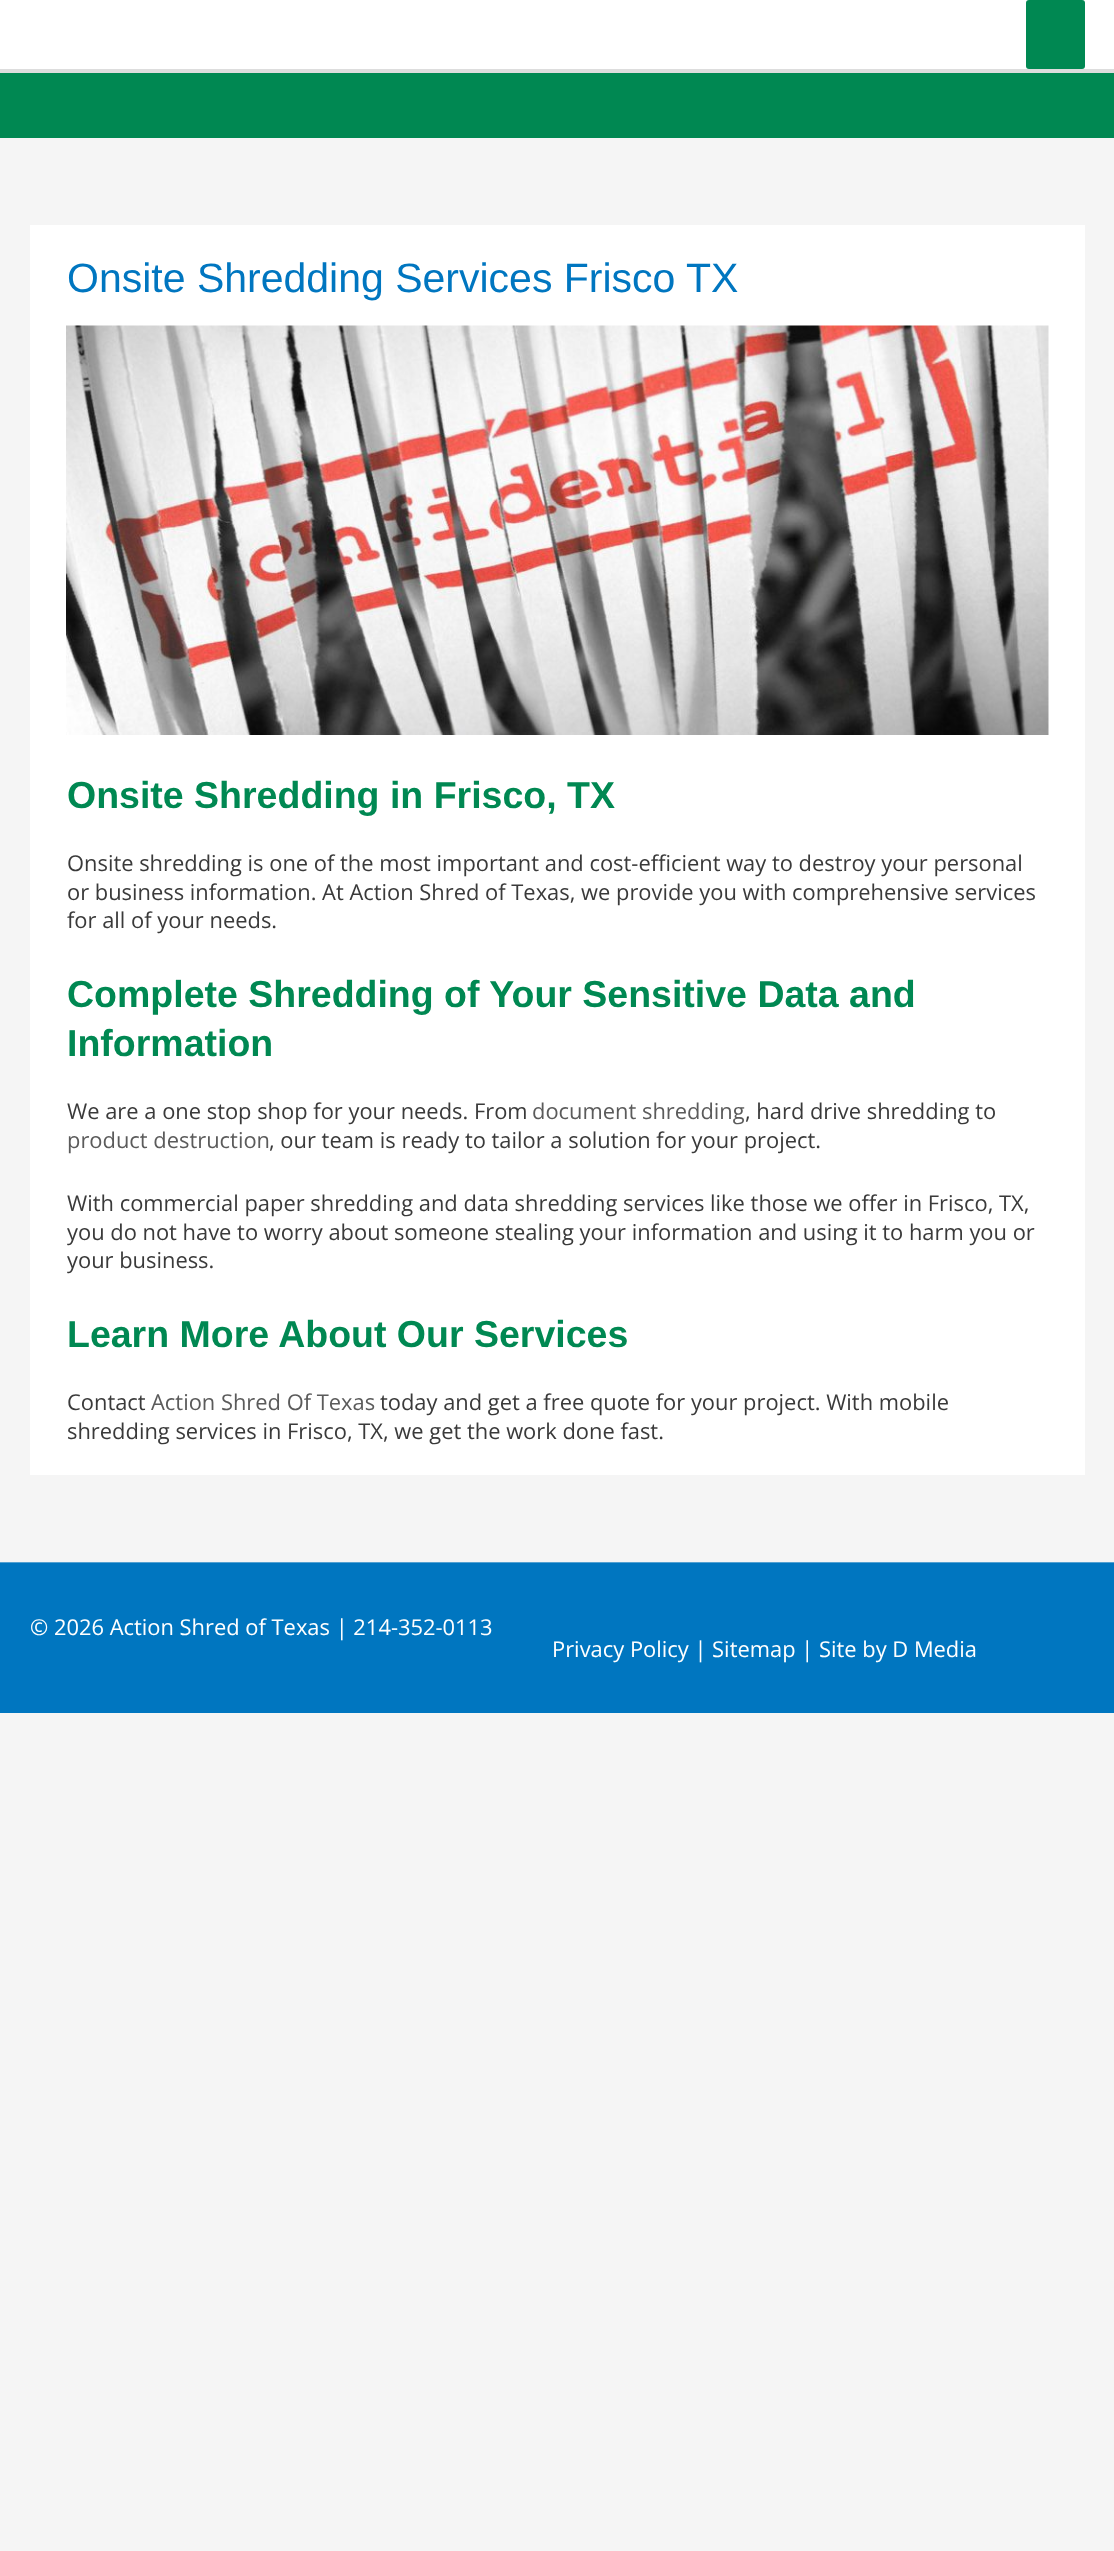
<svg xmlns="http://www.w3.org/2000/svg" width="1114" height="2551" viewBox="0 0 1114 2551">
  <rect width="100%" height="100%" fill="#f5f5f5"/>
  <path d="M0 0h1114v69H0z" fill="#fff"/>
  <rect x="1026" width="59" height="69" rx="3" fill="#008852"/>
  <path d="M0 73h1114v65H0z" fill="#008852"/>
  <path d="M0 69h1114v4H0z" fill="#ddd"/>
  <path d="M30 225h1055v1250H30z" fill="#fff"/>
  <image x="66" y="325" width="983" height="410" href="img/1.png"/>
  <path d="M0 1562h1114v1H0z" fill="#53a1d2"/>
  <path d="M0 1563h1114v150H0z" fill="#0076c0"/>
  <text x="67" y="292" font-family="Liberation Sans" font-size="41" fill="#0076c0">Onsite Shredding Services Frisco TX</text>
  <text x="67" y="808" font-family="Liberation Sans" font-size="37.5" font-weight="bold" fill="#008852">Onsite Shredding in Frisco, TX</text>
  <g font-family="Open Sans" font-size="21.9" fill="#3a3a3a">
    <text x="67" y="871">Onsite shredding is one of the most important and cost-efficient way to destroy your personal</text>
    <text x="67" y="900">or business information. At Action Shred of Texas, we provide you with comprehensive services</text>
    <text x="67" y="928">for all of your needs.</text>
  </g>
  <g font-family="Liberation Sans" font-size="37.5" font-weight="bold" fill="#008852">
    <text x="67" y="1007">Complete Shredding of Your Sensitive Data and</text>
    <text x="67" y="1056">Information</text>
  </g>
  <text x="67" y="1119" font-family="Open Sans" font-size="21.9" fill="#3a3a3a">We are a one stop shop for your needs. From</text>
  <text x="532" y="1119" font-family="Open Sans" font-size="21.9" fill="#5b5b5b">document shredding</text>
  <text x="745" y="1119" font-family="Open Sans" font-size="21.9" fill="#3a3a3a">, hard drive shredding to</text>
  <text x="67" y="1148" font-family="Open Sans" font-size="21.9" fill="#5b5b5b">product destruction</text>
  <g font-family="Open Sans" font-size="21.9" fill="#3a3a3a">
    <text x="269" y="1148">, our team is ready to tailor a solution for your project.</text>
    <text x="67" y="1211">With commercial paper shredding and data shredding services like those we offer in Frisco, TX,</text>
    <text x="67" y="1240">you do not have to worry about someone stealing your information and using it to harm you or</text>
    <text x="67" y="1268">your business.</text>
  </g>
  <text x="67" y="1347" font-family="Liberation Sans" font-size="37.5" font-weight="bold" fill="#008852">Learn More About Our Services</text>
  <text x="67" y="1410" font-family="Open Sans" font-size="21.9" fill="#3a3a3a">Contact</text>
  <text x="151" y="1410" font-family="Open Sans" font-size="21.9" fill="#5b5b5b">Action Shred Of Texas</text>
  <g font-family="Open Sans" font-size="21.9" fill="#3a3a3a">
    <text x="380" y="1410">today and get a free quote for your project. With mobile</text>
    <text x="67" y="1439">shredding services in Frisco, TX, we get the work done fast.</text>
  </g>
  <g font-family="Open Sans" font-size="21.9" fill="#fff">
    <text x="30" y="1635">© 2026 Action Shred of Texas | 214-352-0113</text>
    <text x="552" y="1657">Privacy Policy | Sitemap | Site by D Media</text>
  </g>
</svg>
